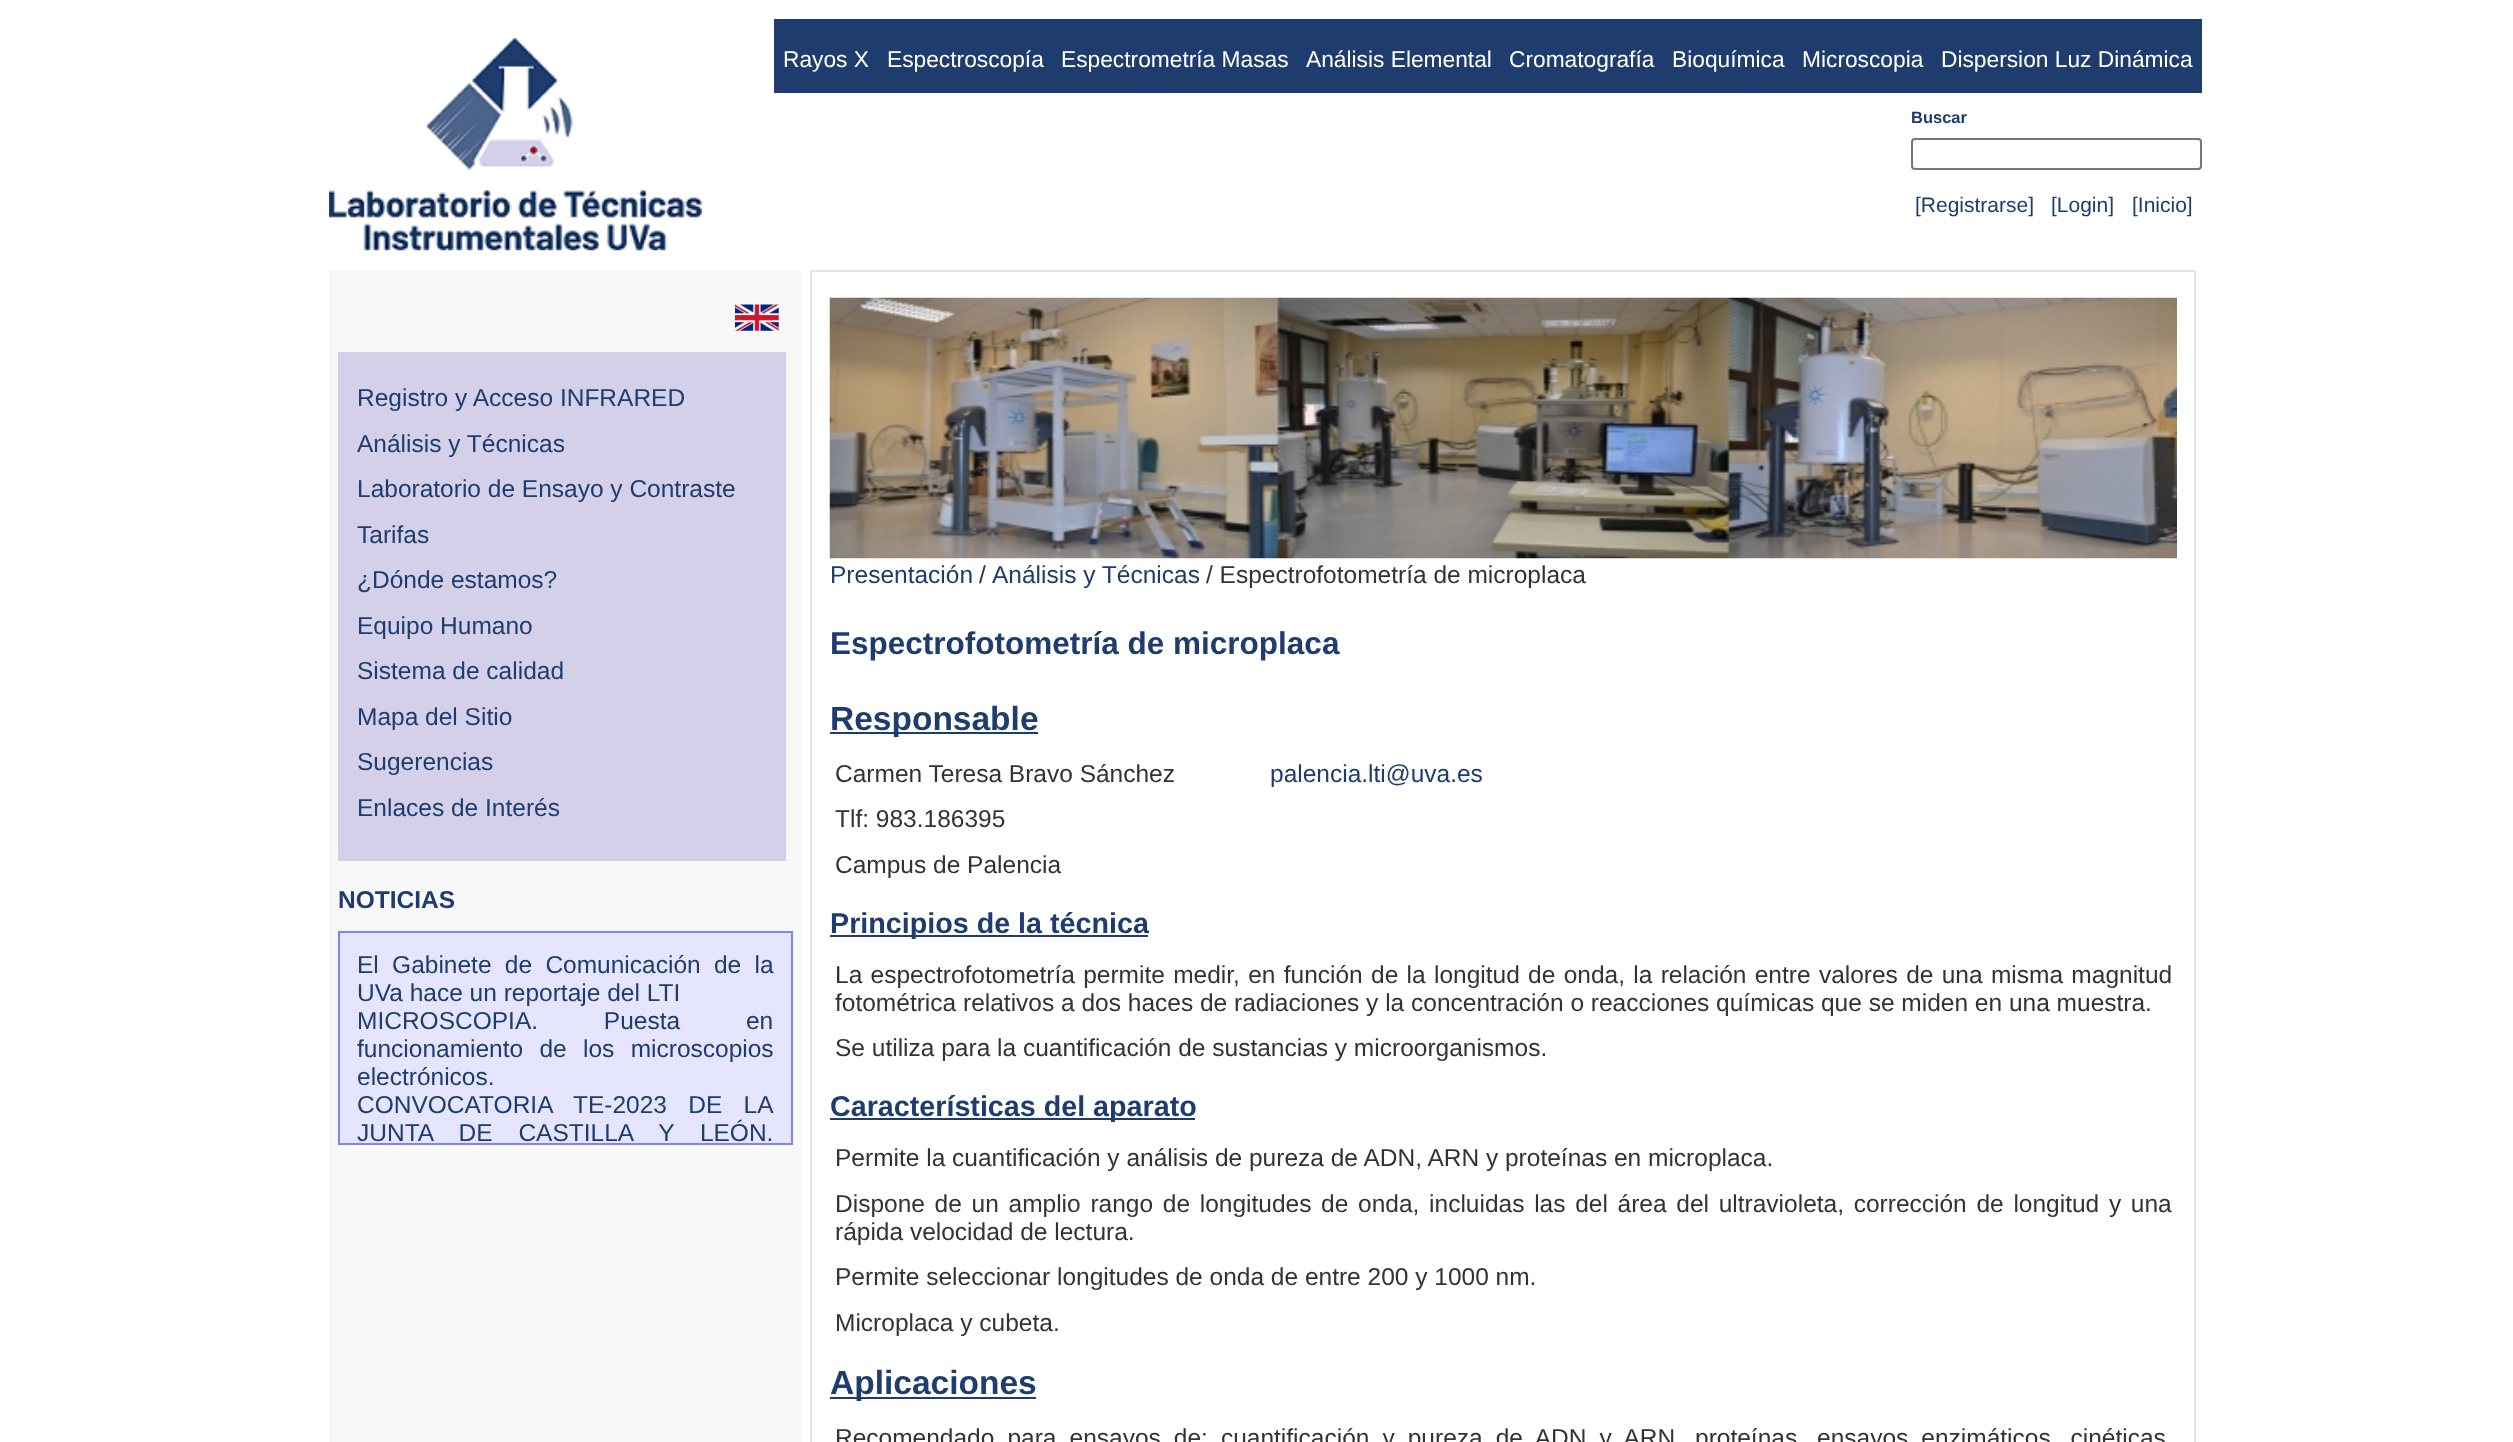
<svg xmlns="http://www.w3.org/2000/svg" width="2513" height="1442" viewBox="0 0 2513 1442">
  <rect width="100%" height="100%" fill="#fff"/>
  <image x="329" y="36" width="373" height="215" href="img/1.png"/>
  <path d="M774 19h1428v74H774z" fill="#1e3c6d"/>
  <rect x="1912" y="139" width="289" height="30" rx="3" fill="none" stroke="#767676" stroke-width="2"/>
  <path d="M329 270h473v1172H329z" fill="#f8f8f8"/>
  <image x="735" y="304" width="44" height="27" href="img/2.png"/>
  <path d="M338 352h448v509H338z" fill="#d5d0e9"/>
  <path d="M339 932h453v212H339z" fill="#e5e5ff" stroke="#8080ff" stroke-width="2"/>
  <path d="M811 271h1384v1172H811z" fill="none" stroke="#dfe5e6" stroke-width="2"/>
  <image x="829" y="297" width="1348" height="262" href="img/3.png"/>
  <path d="M830 732h208v2H830z" fill="#1e3c6d"/>
  <path d="M830 935h318v2H830z" fill="#1e3c6d"/>
  <path d="M830 1118h365v2H830z" fill="#1e3c6d"/>
  <path d="M830 1397h206v2H830z" fill="#1e3c6d"/>
  <g font-family="Liberation Sans" font-size="22.75" fill="#fff">
    <text x="783" y="67">Rayos X</text>
    <text x="887" y="67">Espectroscopía</text>
    <text x="1061" y="67">Espectrometría Masas</text>
    <text x="1306" y="67">Análisis Elemental</text>
    <text x="1509" y="67">Cromatografía</text>
    <text x="1672" y="67">Bioquímica</text>
    <text x="1802" y="67">Microscopia</text>
    <text x="1941" y="67">Dispersion Luz Dinámica</text>
  </g>
  <text x="1911" y="123" font-family="Liberation Sans" font-size="16.5" font-weight="bold" fill="#1e3c6d">Buscar</text>
  <g font-family="Liberation Sans" font-size="21" fill="#1e3c6d">
    <text x="1915" y="212">[Registrarse]</text>
    <text x="2051" y="212">[Login]</text>
    <text x="2132" y="212">[Inicio]</text>
  </g>
  <g font-family="Liberation Sans" font-size="24.5" fill="#1e3c6d">
    <text x="357" y="406">Registro y Acceso INFRARED</text>
    <text x="357" y="452">Análisis y Técnicas</text>
    <text x="357" y="497">Laboratorio de Ensayo y Contraste</text>
    <text x="357" y="543">Tarifas</text>
    <text x="357" y="588">¿Dónde estamos?</text>
    <text x="357" y="634">Equipo Humano</text>
    <text x="357" y="679">Sistema de calidad</text>
    <text x="357" y="725">Mapa del Sitio</text>
    <text x="357" y="770">Sugerencias</text>
    <text x="357" y="816">Enlaces de Interés</text>
  </g>
  <text x="338" y="908" font-family="Liberation Sans" font-size="24.5" font-weight="bold" fill="#1e3c6d">NOTICIAS</text>
  <g font-family="Liberation Sans" font-size="24.5" fill="#1e3c6d">
    <text x="357" y="973" word-spacing="6.5">El Gabinete de Comunicación de la</text>
    <text x="357" y="1001">UVa hace un reportaje del LTI</text>
    <text x="357" y="1029" word-spacing="59">MICROSCOPIA. Puesta en</text>
    <text x="357" y="1057" word-spacing="9.5">funcionamiento de los microscopios</text>
    <text x="357" y="1085">electrónicos.</text>
    <text x="357" y="1113" word-spacing="14.5">CONVOCATORIA TE-2023 DE LA</text>
    <text x="357" y="1141" word-spacing="19">JUNTA DE CASTILLA Y LEÓN.</text>
    <text x="830" y="583">Presentación</text>
  </g>
  <text x="979" y="583" font-family="Liberation Sans" font-size="24.5" fill="#333">/</text>
  <text x="992" y="583" font-family="Liberation Sans" font-size="24.5" fill="#1e3c6d">Análisis y Técnicas</text>
  <text x="1206" y="583" font-family="Liberation Sans" font-size="24.5" fill="#333">/ Espectrofotometría de microplaca</text>
  <text x="830" y="654" font-family="Liberation Sans" font-size="31.5" font-weight="bold" fill="#1e3c6d">Espectrofotometría de microplaca</text>
  <text x="830" y="730" font-family="Liberation Sans" font-size="33.5" font-weight="bold" fill="#1e3c6d">Responsable</text>
  <text x="835" y="782" font-family="Liberation Sans" font-size="24.5" fill="#333">Carmen Teresa Bravo Sánchez</text>
  <text x="1270" y="782" font-family="Liberation Sans" font-size="24.5" fill="#1e3c6d">palencia.lti@uva.es</text>
  <g font-family="Liberation Sans" font-size="24.5" fill="#333">
    <text x="835" y="827">Tlf: 983.186395</text>
    <text x="835" y="873">Campus de Palencia</text>
  </g>
  <text x="830" y="933" font-family="Liberation Sans" font-size="28.7" font-weight="bold" fill="#1e3c6d">Principios de la técnica</text>
  <g font-family="Liberation Sans" font-size="24.5" fill="#333">
    <text x="835" y="983" word-spacing="1.5">La espectrofotometría permite medir, en función de la longitud de onda, la relación entre valores de una misma magnitud</text>
    <text x="835" y="1011">fotométrica relativos a dos haces de radiaciones y la concentración o reacciones químicas que se miden en una muestra.</text>
    <text x="835" y="1056">Se utiliza para la cuantificación de sustancias y microorganismos.</text>
  </g>
  <text x="830" y="1116" font-family="Liberation Sans" font-size="28.7" font-weight="bold" fill="#1e3c6d">Características del aparato</text>
  <g font-family="Liberation Sans" font-size="24.5" fill="#333">
    <text x="835" y="1166">Permite la cuantificación y análisis de pureza de ADN, ARN y proteínas en microplaca.</text>
    <text x="835" y="1212" word-spacing="2.9">Dispone de un amplio rango de longitudes de onda, incluidas las del área del ultravioleta, corrección de longitud y una</text>
    <text x="835" y="1240">rápida velocidad de lectura.</text>
    <text x="835" y="1285">Permite seleccionar longitudes de onda de entre 200 y 1000 nm.</text>
    <text x="835" y="1331">Microplaca y cubeta.</text>
  </g>
  <text x="830" y="1394" font-family="Liberation Sans" font-size="33.5" font-weight="bold" fill="#1e3c6d">Aplicaciones</text>
  <text x="835" y="1446" word-spacing="6.25" font-family="Liberation Sans" font-size="24.5" fill="#333">Recomendado para ensayos de: cuantificación y pureza de ADN y ARN, proteínas, ensayos enzimáticos, cinéticas</text>
</svg>
